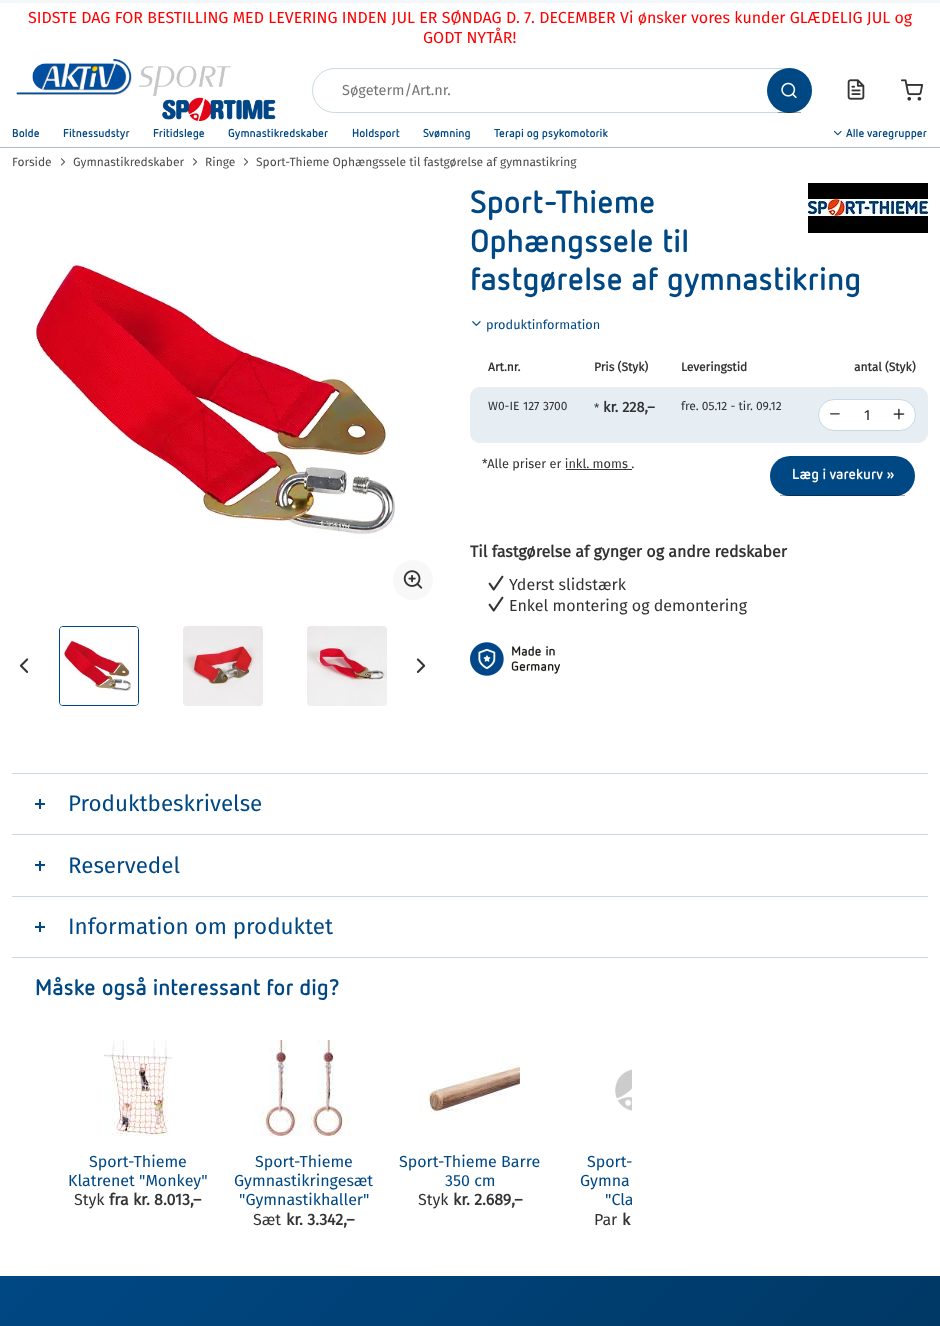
<svg xmlns="http://www.w3.org/2000/svg" width="940" height="1326" viewBox="0 0 940 1326">
  <defs>
    <linearGradient id="g1" gradientUnits="userSpaceOnUse" x1="95" y1="1181" x2="845" y2="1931"><stop offset="0" stop-color="#004884"/><stop offset="1" stop-color="#003055"/></linearGradient>
    <clipPath id="clip1"><path d="M54 1040h578v190H54z"/></clipPath>
  </defs>
  <rect width="100%" height="100%" fill="#fff"/>
  <path d="M0 0h940v3H0z" fill="#f4f7f9"/>
  <image x="16" y="59" width="260" height="62" href="img/1.png"/>
  <rect x="312.5" y="68.5" width="499" height="44" rx="22" fill="none" stroke="#c9d9e1"/>
  <circle cx="789.5" cy="90.5" r="22.5" fill="#004884"/>
  <path d="M778 112h23v1H778z" fill="#00000059"/>
  <image x="781" y="82" width="16" height="17" href="img/2.png"/>
  <image x="847" y="79" width="18" height="21" href="img/3.png"/>
  <image x="901" y="79" width="23" height="22" href="img/4.png"/>
  <path d="M0 147h940v1H0z" fill="#a8c1d5"/>
  <image x="834" y="130" width="8" height="6" href="img/5.png"/>
  <image x="61" y="158" width="4" height="8" href="img/6.png"/>
  <image x="193" y="158" width="4" height="8" href="img/6.png"/>
  <image x="244" y="158" width="4" height="8" href="img/6.png"/>
  <image x="35" y="262" width="360" height="273" href="img/7.png"/>
  <circle cx="413" cy="580" r="20" fill="#f8f8f8"/>
  <image x="403" y="570" width="20" height="19" href="img/8.png"/>
  <image x="19" y="658" width="10" height="15" href="img/9.png"/>
  <rect x="59.5" y="626.5" width="79" height="79" rx="3.5" fill="none" stroke="#004884"/>
  <image x="60" y="627" width="78" height="78" href="img/10.png"/>
  <image x="183" y="626" width="80" height="80" href="img/11.png"/>
  <image x="307" y="626" width="80" height="80" href="img/12.png"/>
  <image x="416" y="658" width="10" height="15" href="img/13.png"/>
  <image x="808" y="183" width="120" height="50" href="img/14.png"/>
  <image x="472" y="321" width="9" height="5" href="img/15.png"/>
  <path d="M480 387H582V443H480C474.5 443 470 438.5 470 433V397C470 391.5 474.5 387 480 387Z" fill="#e6edf3"/>
  <path d="M582 387h224v56H582z" fill="#e6edf3"/>
  <path d="M806 387H918C923.5 387 928 391.5 928 397V433C928 438.5 923.5 443 918 443H806Z" fill="#e6edf3"/>
  <rect x="818.5" y="399.5" width="97" height="31" rx="15.5" fill="#fff" stroke="#c9d9e1"/>
  <image x="830" y="413" width="10" height="2" href="img/16.png"/>
  <image x="893" y="408" width="12" height="12" href="img/17.png"/>
  <path d="M566 469h66v1H566z" fill="#333"/>
  <rect x="770" y="456" width="145" height="40" rx="20" fill="#004884"/>
  <path d="M780 495h125v1H780z" fill="#00000059"/>
  <image x="488" y="575" width="16" height="16" href="img/18.png"/>
  <image x="488" y="596" width="16" height="16" href="img/18.png"/>
  <image x="470" y="642" width="90" height="34" href="img/19.png"/>
  <path d="M12 773h916v1H12z" fill="#c9d9e1"/>
  <path d="M35 803h10v2H35z" fill="#004884"/>
  <path d="M39 799h2v10H39z" fill="#004884"/>
  <path d="M12 834h916v1H12z" fill="#c9d9e1"/>
  <path d="M35 864h10v2H35z" fill="#004884"/>
  <path d="M39 861h2v10H39z" fill="#004884"/>
  <path d="M12 896h916v1H12z" fill="#c9d9e1"/>
  <path d="M35 926h10v2H35z" fill="#004884"/>
  <path d="M39 922h2v10H39z" fill="#004884"/>
  <path d="M12 957h916v1H12z" fill="#c9d9e1"/>
  <image x="104" y="1040" width="72" height="96" href="img/20.png"/>
  <image x="254" y="1040" width="96" height="97" href="img/21.png"/>
  <image x="420" y="1056" width="100" height="58" href="img/22.png"/>
  <image x="615" y="1069" width="17" height="42" href="img/23.png"/>
  <path d="M0 1276h940v50H0z" fill="url(#g1)"/>
  <g font-family="Fira Sans" font-size="16" fill="#f00">
    <text x="28" y="23">SIDSTE DAG FOR BESTILLING MED LEVERING INDEN JUL ER SØNDAG D. 7. DECEMBER Vi ønsker vores kunder GLÆDELIG JUL og</text>
    <text x="423" y="43">GODT NYTÅR!</text>
  </g>
  <text x="342" y="95" font-family="Fira Sans" font-size="14.5" fill="#757575">Søgeterm/Art.nr.</text>
  <g font-family="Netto" font-size="11.5" font-weight="bold" fill="#004884">
    <text x="12" y="137">Bolde</text>
    <text x="63" y="137">Fitnessudstyr</text>
    <text x="153" y="137">Fritidslege</text>
    <text x="228" y="137">Gymnastikredskaber</text>
    <text x="352" y="137">Holdsport</text>
    <text x="423" y="137">Svømning</text>
    <text x="494" y="137">Terapi og psykomotorik</text>
    <text x="846" y="137">Alle varegrupper</text>
  </g>
  <g font-family="Fira Sans" font-size="12" fill="#4e4e4e">
    <text x="12" y="166">Forside</text>
    <text x="73" y="166">Gymnastikredskaber</text>
    <text x="205" y="166">Ringe</text>
    <text x="256" y="166">Sport-Thieme Ophængssele til fastgørelse af gymnastikring</text>
  </g>
  <g font-family="Netto" font-size="32" font-weight="bold" fill="#004884">
    <text x="470" y="213">Sport-Thieme</text>
    <text x="470" y="252">Ophængssele til</text>
    <text x="470" y="290">fastgørelse af gymnastikring</text>
  </g>
  <text x="486" y="329" font-family="Fira Sans" font-size="12.75" fill="#004884">produktinformation</text>
  <g font-family="Fira Sans" font-size="12" font-weight="bold" fill="#333">
    <text x="488" y="371">Art.nr.</text>
    <text x="594" y="371">Pris (Styk)</text>
    <text x="681" y="371">Leveringstid</text>
    <text x="854" y="371">antal (Styk)</text>
  </g>
  <g font-family="Fira Sans" font-size="12" fill="#333">
    <text x="488" y="410">W0-IE</text>
    <text x="523" y="410">127</text>
    <text x="543" y="410">3700</text>
    <text x="594" y="412">*</text>
  </g>
  <text x="603" y="412" font-family="Fira Sans" font-size="14.5" font-weight="bold" fill="#333">kr. 228,–</text>
  <text x="681" y="410" font-family="Fira Sans" font-size="12" fill="#333">fre. 05.12 - tir. 09.12</text>
  <text x="864" y="420" font-family="Fira Sans" font-size="14.5" fill="#222">1</text>
  <text x="482" y="468" font-family="Fira Sans" font-size="12.75" fill="#333">*Alle priser er inkl. moms .</text>
  <text x="792" y="479" font-family="Netto" font-size="14.5" font-weight="bold" fill="#fff">Læg i varekurv »</text>
  <text x="470" y="557" font-family="Fira Sans" font-size="16" font-weight="bold" fill="#333">Til fastgørelse af gynger og andre redskaber</text>
  <g font-family="Fira Sans" font-size="16" fill="#333">
    <text x="509" y="590">Yderst slidstærk</text>
    <text x="509" y="611">Enkel montering og demontering</text>
  </g>
  <g font-family="Fira Sans" font-size="22.4" fill="#004884">
    <text x="68" y="811">Produktbeskrivelse</text>
    <text x="68" y="873">Reservedel</text>
    <text x="68" y="934">Information om produktet</text>
  </g>
  <text x="35" y="995" font-family="Netto" font-size="22.4" font-weight="bold" fill="#004884">Måske også interessant for dig?</text>
  <g font-family="Fira Sans" font-size="16" fill="#004884">
    <text x="89" y="1167">Sport-Thieme</text>
    <text x="68" y="1186">Klatrenet "Monkey"</text>
  </g>
  <text x="74" y="1205" font-family="Fira Sans" font-size="16" fill="#333">Styk</text>
  <text x="109" y="1205" font-family="Fira Sans" font-size="16" font-weight="bold" fill="#333">fra kr. 8.013,–</text>
  <g font-family="Fira Sans" font-size="16" fill="#004884">
    <text x="255" y="1167">Sport-Thieme</text>
    <text x="234" y="1186">Gymnastikringesæt</text>
    <text x="239" y="1205">"Gymnastikhaller"</text>
  </g>
  <text x="253" y="1225" font-family="Fira Sans" font-size="16" fill="#333">Sæt</text>
  <text x="286" y="1225" font-family="Fira Sans" font-size="16" font-weight="bold" fill="#333">kr. 3.342,–</text>
  <g font-family="Fira Sans" font-size="16" fill="#004884">
    <text x="399" y="1167">Sport-Thieme Barre</text>
    <text x="445" y="1186">350 cm</text>
  </g>
  <text x="418" y="1205" font-family="Fira Sans" font-size="16" fill="#333">Styk</text>
  <text x="453" y="1205" font-family="Fira Sans" font-size="16" font-weight="bold" fill="#333">kr. 2.689,–</text>
  <g font-family="Fira Sans" font-size="16" fill="#004884">
    <text x="587" y="1167">Sport-</text>
    <text x="580" y="1186">Gymna</text>
  </g>
  <g clip-path="url(#clip1)">
    <text x="605" y="1205" font-family="Fira Sans" font-size="16" fill="#004884">"Cla</text>
  </g>
  <text x="594" y="1225" font-family="Fira Sans" font-size="16" fill="#333">Par</text>
  <text x="622" y="1225" font-family="Fira Sans" font-size="16" font-weight="bold" fill="#333">k</text>
</svg>
